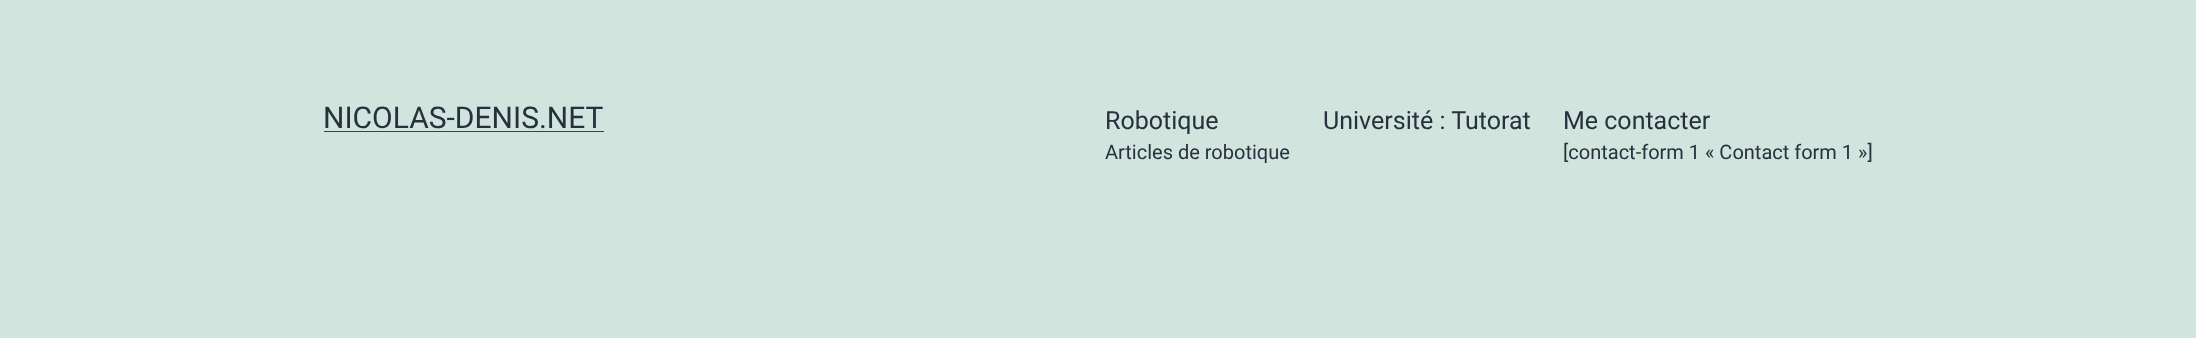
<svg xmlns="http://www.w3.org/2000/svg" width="2196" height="338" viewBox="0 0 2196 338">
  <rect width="100%" height="100%" fill="#d1e4dd"/>
  <path d="M324 131h280v1H324z" fill="#39414d"/>
  <text x="323" y="128" font-family="Roboto" font-size="30" fill="#28303d">NICOLAS-DENIS.NET</text>
  <text x="1105" y="129" font-family="Roboto" font-size="25" fill="#28303d">Robotique</text>
  <text x="1105" y="159" font-family="Roboto" font-size="20" fill="#28303d">Articles de robotique</text>
  <g font-family="Roboto" font-size="25" fill="#28303d">
    <text x="1323" y="129">Université : Tutorat</text>
    <text x="1563" y="129">Me contacter</text>
  </g>
  <text x="1563" y="159" font-family="Roboto" font-size="20" fill="#28303d">[contact-form 1 « Contact form 1 »]</text>
</svg>
